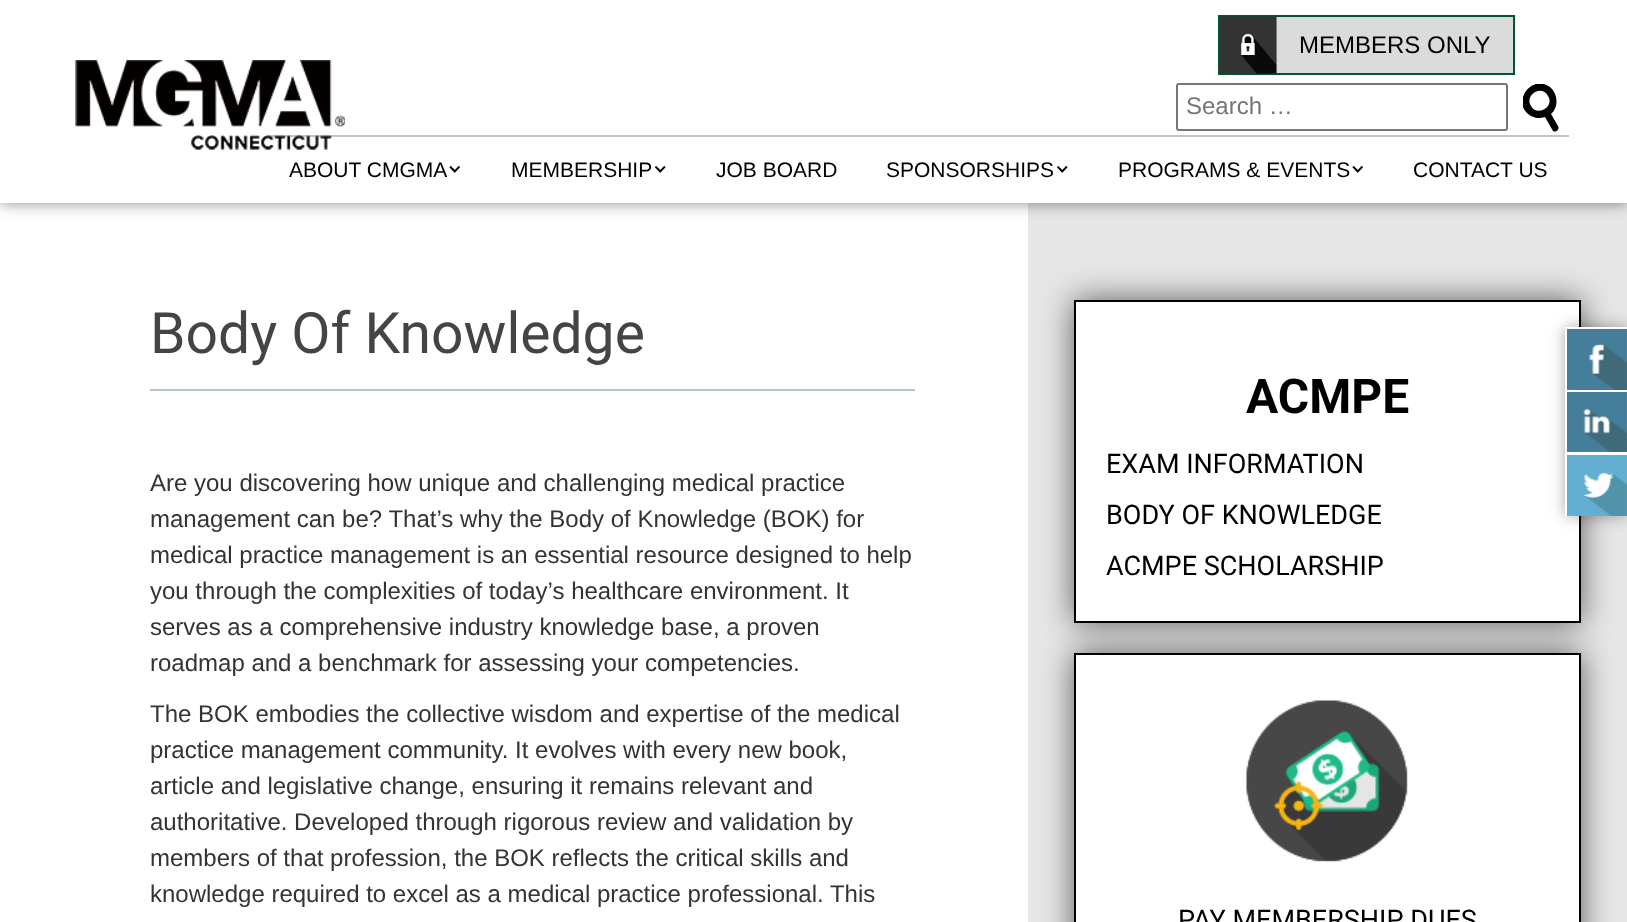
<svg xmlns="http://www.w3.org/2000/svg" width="1627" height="922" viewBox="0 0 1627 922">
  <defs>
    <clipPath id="clip1"><path d="M1523 84h36v48H1523z"/></clipPath>
  </defs>
  <rect width="100%" height="100%" fill="#fff"/>
  <path d="M1028 203h599v719H1028z" fill="#e6e6e6"/>
  <path d="M0 0h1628v203H0z" fill="#00000078" filter="blur(7.5px)"/>
  <path d="M0 0h1627v203H0z" fill="#fff"/>
  <image x="75" y="60" width="270" height="90" href="img/1.png"/>
  <path d="M1276 17h237v56H1276z" fill="#dbdbdb"/>
  <path d="M1219 16h295v58H1219z" fill="none" stroke="#00562f" stroke-width="2"/>
  <image x="1219" y="16" width="58" height="58" href="img/2.png"/>
  <rect x="1177" y="84" width="330" height="46" rx="2" fill="none" stroke="#767676" stroke-width="2"/>
  <g clip-path="url(#clip1)">
    <path d="M1558 126L1551 114C1559 107 1558 94 1550 87C1531 73 1510 104 1531 116C1535 118 1540 119 1545 117L1553 131C1556 133 1560 129 1558 126ZM1531 106C1524 95 1542 84 1548 96C1555 107 1537 117 1531 106Z" fill="#000"/>
  </g>
  <path d="M269 135h1300v2H269z" fill="#3333334a"/>
  <image x="449" y="165" width="11" height="8" href="img/3.png"/>
  <image x="654" y="165" width="12" height="8" href="img/4.png"/>
  <image x="1056" y="165" width="12" height="8" href="img/4.png"/>
  <image x="1352" y="165" width="11" height="8" href="img/3.png"/>
  <path d="M150 389h765v2H150z" fill="#b3c5bd"/>
  <path d="M1074 300h507v323H1074z" fill="#00000099" filter="blur(16px)"/>
  <path d="M1075 301h505v321H1075z" fill="#fff" stroke="#000" stroke-width="2"/>
  <path d="M1074 653h507v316H1074z" fill="#00000099" filter="blur(16px)"/>
  <path d="M1075 654h505v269H1075z" fill="#fff" stroke="#000" stroke-width="2"/>
  <image x="1246" y="700" width="162" height="162" href="img/5.png"/>
  <path d="M1565 327h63v189H1565z" fill="#00000057" filter="blur(7.5px)"/>
  <image x="1567" y="329" width="60" height="61" href="img/6.png"/>
  <path d="M1565 327h62v2H1565z" fill="#fff"/>
  <path d="M1565 327h2v63H1565z" fill="#fff"/>
  <image x="1567" y="392" width="60" height="60" href="img/7.png"/>
  <path d="M1565 390h62v2H1565z" fill="#fff"/>
  <path d="M1565 452h62v3H1565z" fill="#fff"/>
  <path d="M1565 390h2v126H1565z" fill="#fff"/>
  <image x="1567" y="455" width="60" height="61" href="img/8.png"/>
  <text x="1299" y="53" font-family="Liberation Sans" font-size="24" fill="#000">MEMBERS ONLY</text>
  <text x="1186" y="114" font-family="Liberation Sans" font-size="24" fill="#757575">Search …</text>
  <g font-family="Liberation Sans" font-size="21" fill="#000">
    <text x="289" y="177">ABOUT CMGMA</text>
    <text x="511" y="177">MEMBERSHIP</text>
    <text x="716" y="177">JOB BOARD</text>
    <text x="886" y="177">SPONSORSHIPS</text>
    <text x="1118" y="177">PROGRAMS &amp; EVENTS</text>
    <text x="1413" y="177">CONTACT US</text>
  </g>
  <text x="150" y="353" font-family="Roboto" font-size="57" fill="#444">Body Of Knowledge</text>
  <g font-family="Liberation Sans" font-size="24" fill="#333">
    <text x="150" y="491">Are you discovering how unique and challenging medical practice</text>
    <text x="150" y="527">management can be? That’s why the Body of Knowledge (BOK) for</text>
    <text x="150" y="563">medical practice management is an essential resource designed to help</text>
    <text x="150" y="599">you through the complexities of today’s healthcare environment. It</text>
    <text x="150" y="635">serves as a comprehensive industry knowledge base, a proven</text>
    <text x="150" y="671">roadmap and a benchmark for assessing your competencies.</text>
    <text x="150" y="722">The BOK embodies the collective wisdom and expertise of the medical</text>
    <text x="150" y="758">practice management community. It evolves with every new book,</text>
    <text x="150" y="794">article and legislative change, ensuring it remains relevant and</text>
    <text x="150" y="830">authoritative. Developed through rigorous review and validation by</text>
    <text x="150" y="866">members of that profession, the BOK reflects the critical skills and</text>
    <text x="150" y="902">knowledge required to excel as a medical practice professional. This</text>
  </g>
  <text x="1246" y="413" font-family="Roboto" font-size="48" font-weight="bold" fill="#000">ACMPE</text>
  <g font-family="Roboto" font-size="27" fill="#000">
    <text x="1106" y="473">EXAM INFORMATION</text>
    <text x="1106" y="524">BODY OF KNOWLEDGE</text>
    <text x="1106" y="575">ACMPE SCHOLARSHIP</text>
    <text x="1178" y="929">PAY MEMBERSHIP DUES</text>
  </g>
</svg>
